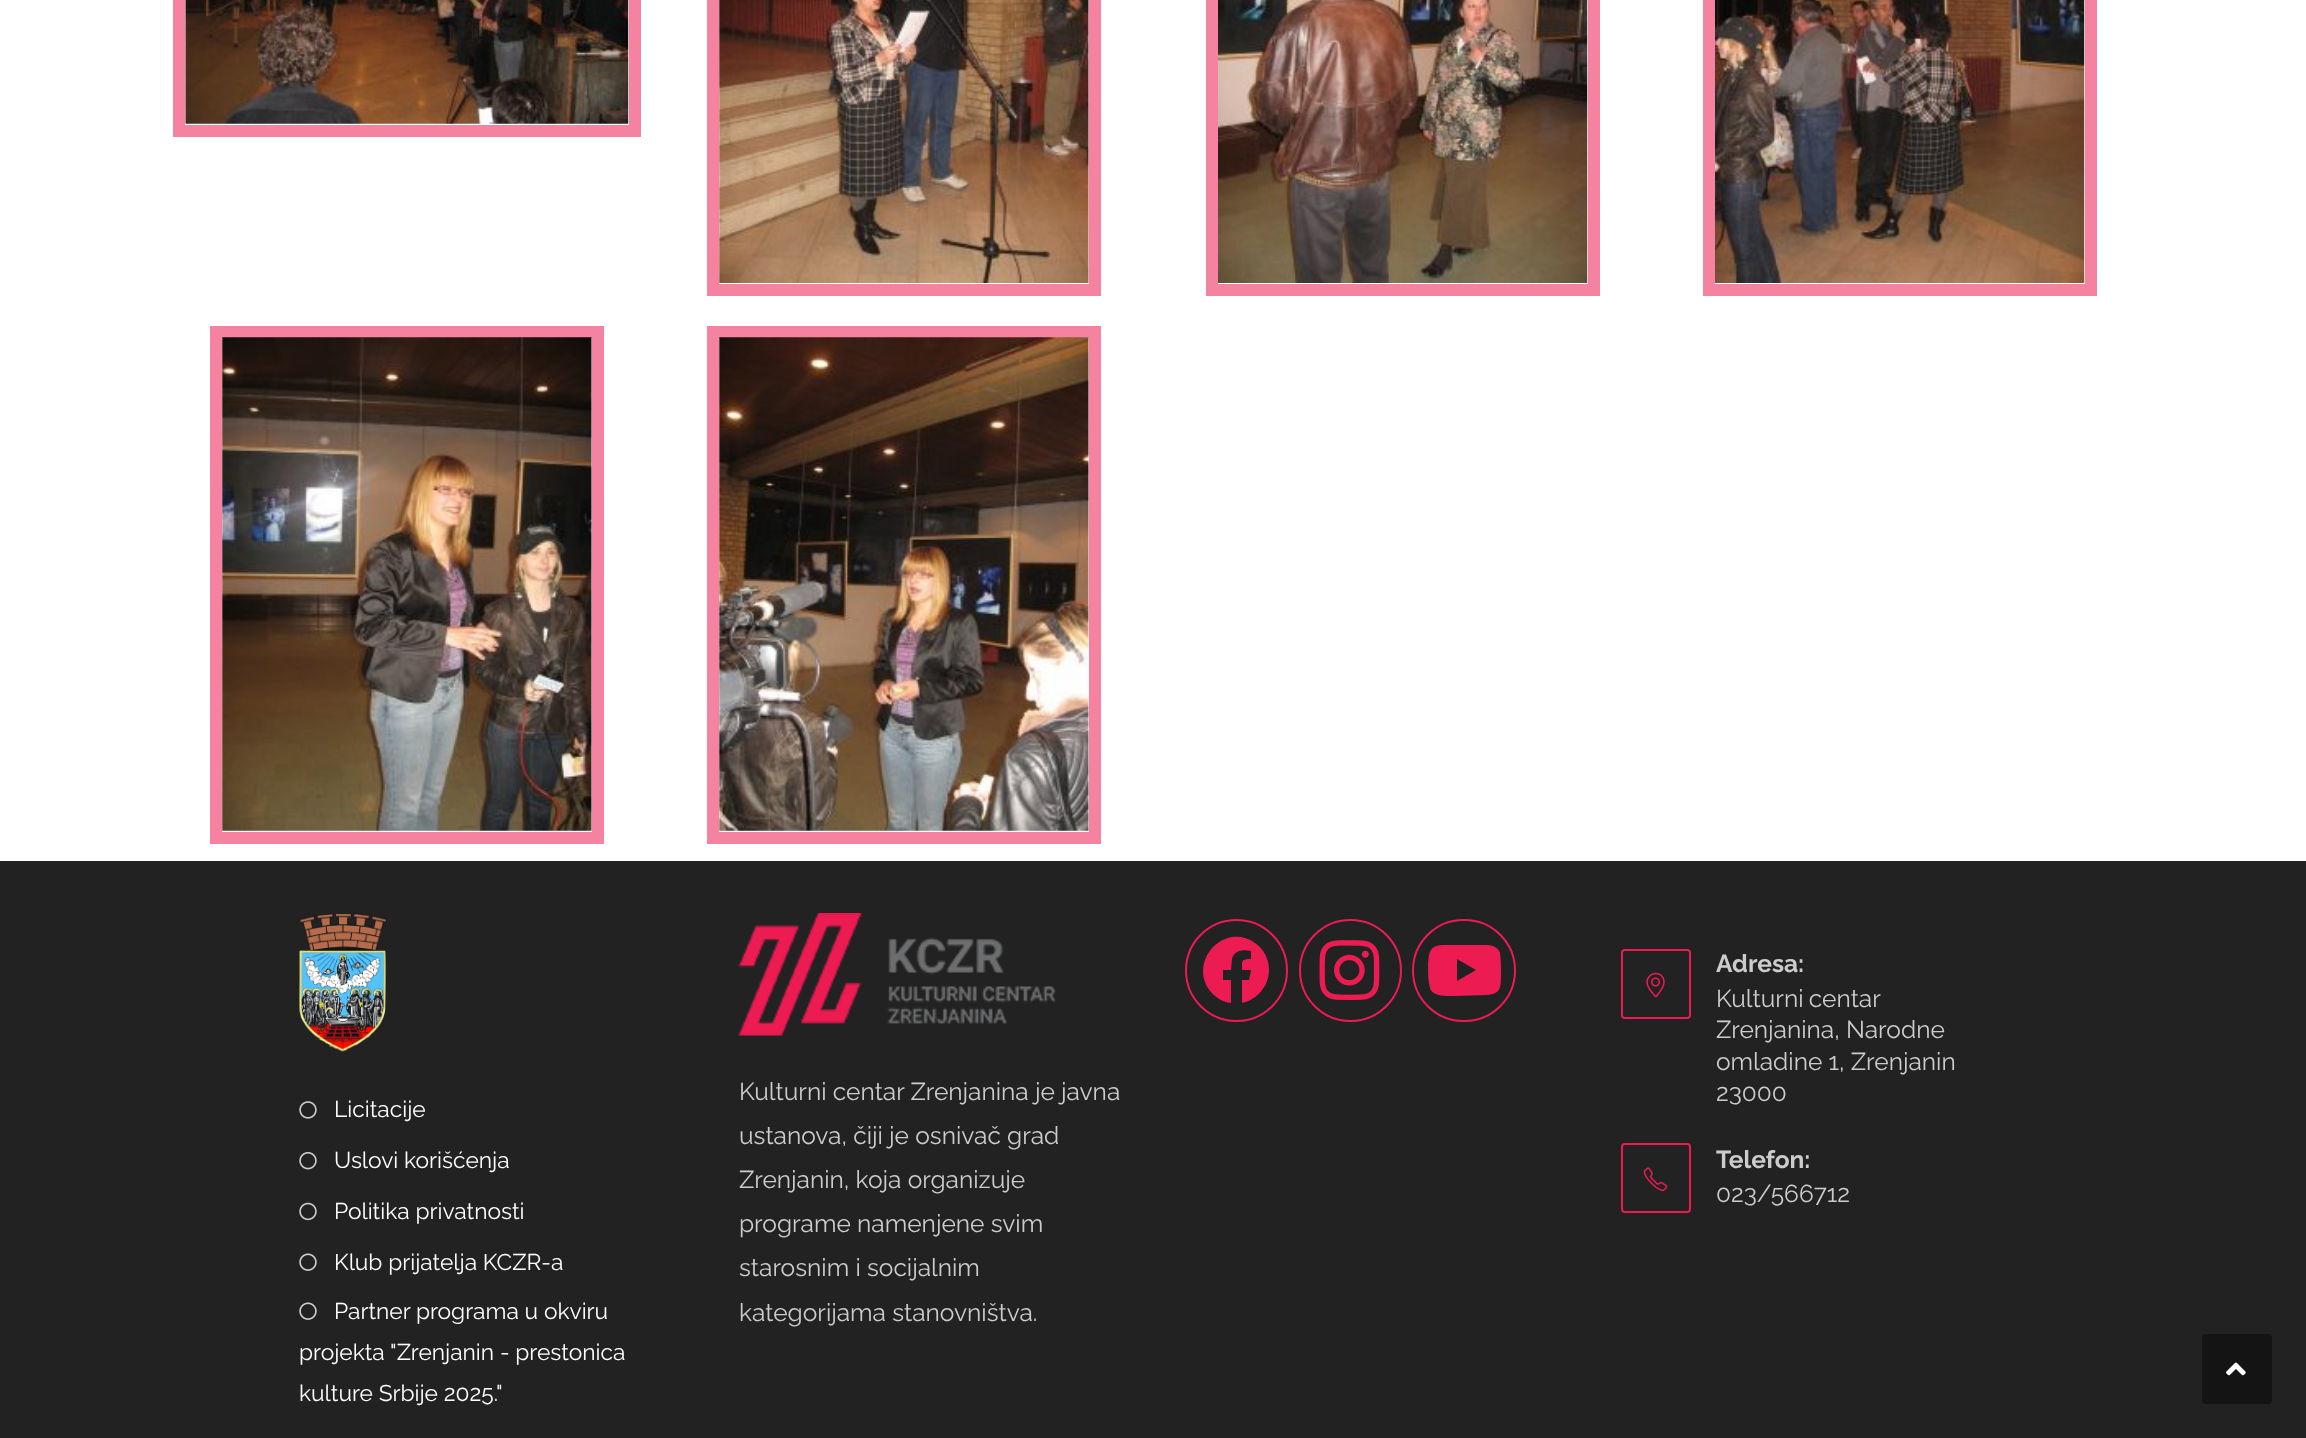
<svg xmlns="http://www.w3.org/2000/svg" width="2306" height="1438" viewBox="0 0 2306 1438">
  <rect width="100%" height="100%" fill="#fff"/>
  <path d="M179 -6h456v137H179z" fill="none" stroke="#f582a0" stroke-width="12"/>
  <image x="185" y="0" width="444" height="124" href="img/1.png"/>
  <path d="M713 -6h382v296H713z" fill="none" stroke="#f582a0" stroke-width="12"/>
  <image x="719" y="0" width="370" height="283" href="img/2.png"/>
  <path d="M1212 -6h382v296H1212z" fill="none" stroke="#f582a0" stroke-width="12"/>
  <image x="1218" y="0" width="370" height="283" href="img/3.png"/>
  <path d="M1709 -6h382v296H1709z" fill="none" stroke="#f582a0" stroke-width="12"/>
  <image x="1715" y="0" width="370" height="283" href="img/4.png"/>
  <path d="M216 332h382v506H216z" fill="none" stroke="#f582a0" stroke-width="12"/>
  <image x="222" y="337" width="370" height="494" href="img/5.png"/>
  <path d="M713 332h382v506H713z" fill="none" stroke="#f582a0" stroke-width="12"/>
  <image x="719" y="337" width="370" height="494" href="img/6.png"/>
  <path d="M0 861h2306v577H0z" fill="#222"/>
  <image x="299" y="913" width="88" height="139" href="img/7.png"/>
  <image x="299" y="1101" width="18" height="18" href="img/8.png"/>
  <image x="299" y="1152" width="18" height="18" href="img/9.png"/>
  <image x="299" y="1202" width="18" height="19" href="img/10.png"/>
  <image x="299" y="1253" width="18" height="18" href="img/11.png"/>
  <image x="299" y="1302" width="18" height="18" href="img/11.png"/>
  <image x="738" y="913" width="318" height="123" href="img/12.png"/>
  <circle cx="1236.5" cy="970.5" r="50.5" fill="none" stroke="#ec1b52" stroke-width="2"/>
  <path d="M1269 970C1269 986 1257 1000 1242 1003V980H1249L1251 970H1242C1242 961 1241 959 1251 959V951C1244 949 1234 950 1232 959L1231 970H1223V980H1231V1003C1223 1002 1216 998 1211 992C1187 963 1223 921 1255 943C1264 949 1269 959 1269 970Z" fill="#ec1b52"/>
  <circle cx="1350.5" cy="970.5" r="50.5" fill="none" stroke="#ec1b52" stroke-width="2"/>
  <image x="1319" y="940" width="61" height="60" href="img/13.png"/>
  <rect x="1413" y="920" width="102" height="101" rx="50.5" fill="none" stroke="#ec1b52" stroke-width="2"/>
  <path d="M1500 953C1501 960 1501 968 1501 975C1501 987 1501 994 1487 995L1455 996C1448 996 1432 997 1430 988C1428 981 1428 973 1428 965C1429 953 1429 946 1442 945H1459H1480C1487 945 1497 944 1500 953ZM1457 981L1476 970L1457 959Z" fill="#ec1b52"/>
  <rect x="1622" y="950" width="68" height="68" rx="3" fill="none" stroke="#ec1b52" stroke-width="2"/>
  <image x="1646" y="972" width="19" height="26" href="img/14.png"/>
  <rect x="1622" y="1144" width="68" height="68" rx="3" fill="none" stroke="#ec1b52" stroke-width="2"/>
  <image x="1643" y="1167" width="25" height="25" href="img/15.png"/>
  <rect x="2202" y="1334" width="70" height="70" rx="4" fill="#141414"/>
  <image x="2226" y="1362" width="20" height="14" href="img/16.png"/>
  <g font-family="Raleway" font-size="22.75" fill="#fff">
    <text x="334" y="1117">Licitacije</text>
    <text x="334" y="1168">Uslovi korišćenja</text>
    <text x="334" y="1219">Politika privatnosti</text>
    <text x="334" y="1270">Klub prijatelja KCZR-a</text>
    <text x="334" y="1319">Partner programa u okviru</text>
    <text x="299" y="1360">projekta "Zrenjanin - prestonica</text>
    <text x="299" y="1401">kulture Srbije 2025."</text>
  </g>
  <g font-family="Raleway" font-size="24.5" fill="#ccc">
    <text x="739" y="1100">Kulturni centar Zrenjanina je javna</text>
    <text x="739" y="1144">ustanova, čiji je osnivač grad</text>
    <text x="739" y="1188">Zrenjanin, koja organizuje</text>
    <text x="739" y="1232">programe namenjene svim</text>
    <text x="739" y="1276">starosnim i socijalnim</text>
    <text x="739" y="1321">kategorijama stanovništva.</text>
  </g>
  <text x="1716" y="972" font-family="Raleway" font-size="24.5" font-weight="bold" fill="#ccc">Adresa:</text>
  <g font-family="Raleway" font-size="24.5" fill="#ccc">
    <text x="1716" y="1007" word-spacing="-1">Kulturni centar</text>
    <text x="1716" y="1038">Zrenjanina, Narodne</text>
    <text x="1716" y="1070">omladine 1, Zrenjanin</text>
    <text x="1716" y="1101">23000</text>
  </g>
  <text x="1716" y="1168" font-family="Raleway" font-size="24.5" font-weight="bold" fill="#ccc">Telefon:</text>
  <text x="1716" y="1202" font-family="Raleway" font-size="24.5" fill="#ccc">023/566712</text>
</svg>
